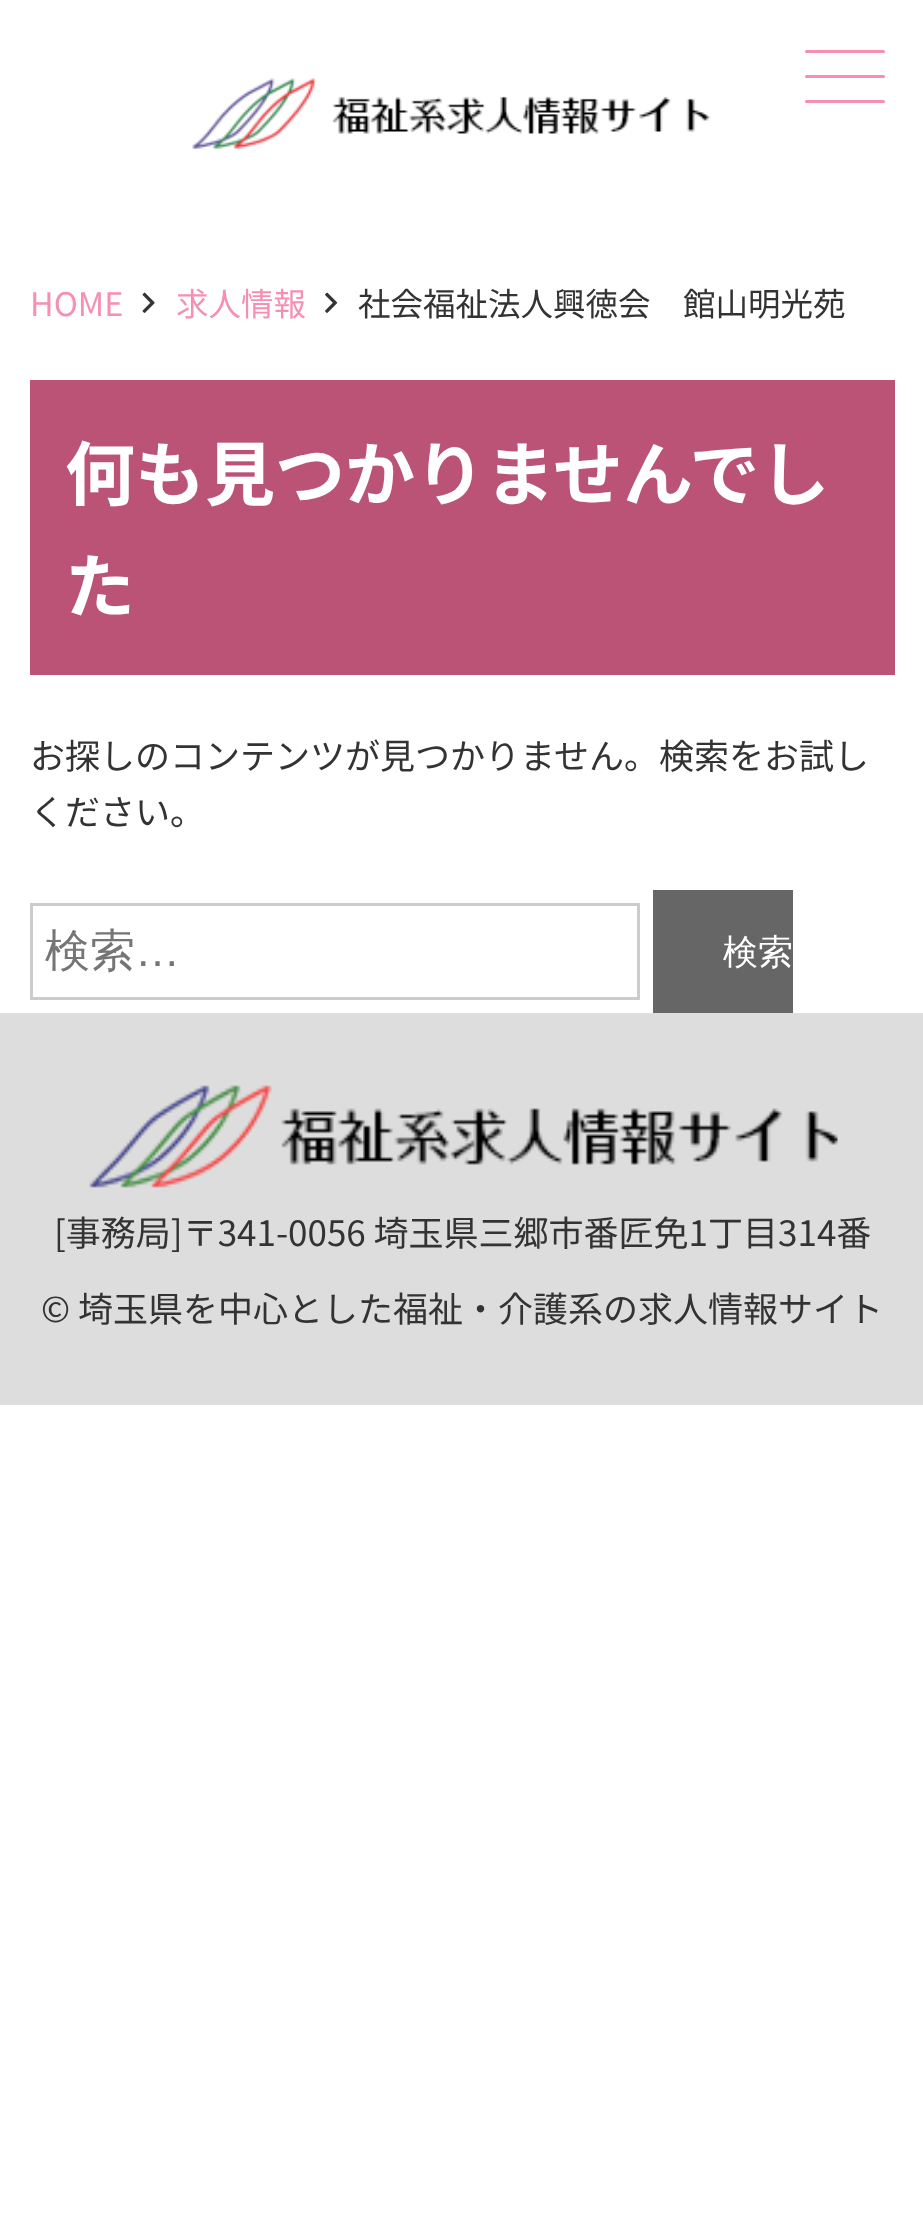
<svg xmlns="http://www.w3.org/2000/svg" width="923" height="2219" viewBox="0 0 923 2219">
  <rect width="100%" height="100%" fill="#fff"/>
  <image x="192" y="78" width="519" height="72" href="img/1.png"/>
  <rect x="805" y="50" width="80" height="3" rx="1.5" fill="#f78fb3"/>
  <rect x="805" y="75" width="80" height="3" rx="1.5" fill="#f78fb3"/>
  <rect x="805" y="100" width="80" height="3" rx="1.5" fill="#f78fb3"/>
  <image x="142" y="292" width="13" height="21" href="img/2.png"/>
  <image x="325" y="292" width="13" height="21" href="img/3.png"/>
  <path d="M30 380h865v295H30z" fill="#bb5377"/>
  <path d="M31.5 904.5h607v94H31.5z" fill="none" stroke="#ccc" stroke-width="3"/>
  <path d="M653 890h140v123H653z" fill="#666"/>
  <path d="M0 1013h923v392H0z" fill="#ddd"/>
  <image x="89" y="1085" width="749" height="103" href="img/4.png"/>
  <g font-family="Noto Sans JP" font-size="32.5" fill="#f78fb3">
    <text x="30" y="316">HOME</text>
    <text x="176" y="316">求人情報</text>
  </g>
  <text x="358" y="316" font-family="Noto Sans JP" font-size="32.5" fill="#333">社会福祉法人興徳会　館山明光苑</text>
  <g font-family="Noto Sans JP" font-size="70" font-weight="bold" fill="#fff">
    <text x="65" y="500">何も見つかりませんでし</text>
    <text x="65" y="612">た</text>
  </g>
  <g font-family="Noto Sans JP" font-size="35" fill="#333">
    <text x="30" y="769">お探しのコンテンツが見つかりません。検索をお試し</text>
    <text x="30" y="825">ください。</text>
  </g>
  <text x="45" y="966" font-family="WenQuanYi Zen Hei" font-size="45" font-weight="500" fill="#757575">検索</text>
  <text x="135" y="966" font-family="Liberation Sans" font-size="45" fill="#757575">…</text>
  <text x="723" y="964" font-family="WenQuanYi Zen Hei" font-size="35" font-weight="500" fill="#fff">検索</text>
  <g font-family="Noto Sans JP" font-size="35" fill="#333">
    <text x="54" y="1246">[事務局]〒341-0056 埼玉県三郷市番匠免1丁目314番</text>
    <text x="41" y="1322">© 埼玉県を中心とした福祉・介護系の求人情報サイト</text>
  </g>
</svg>
